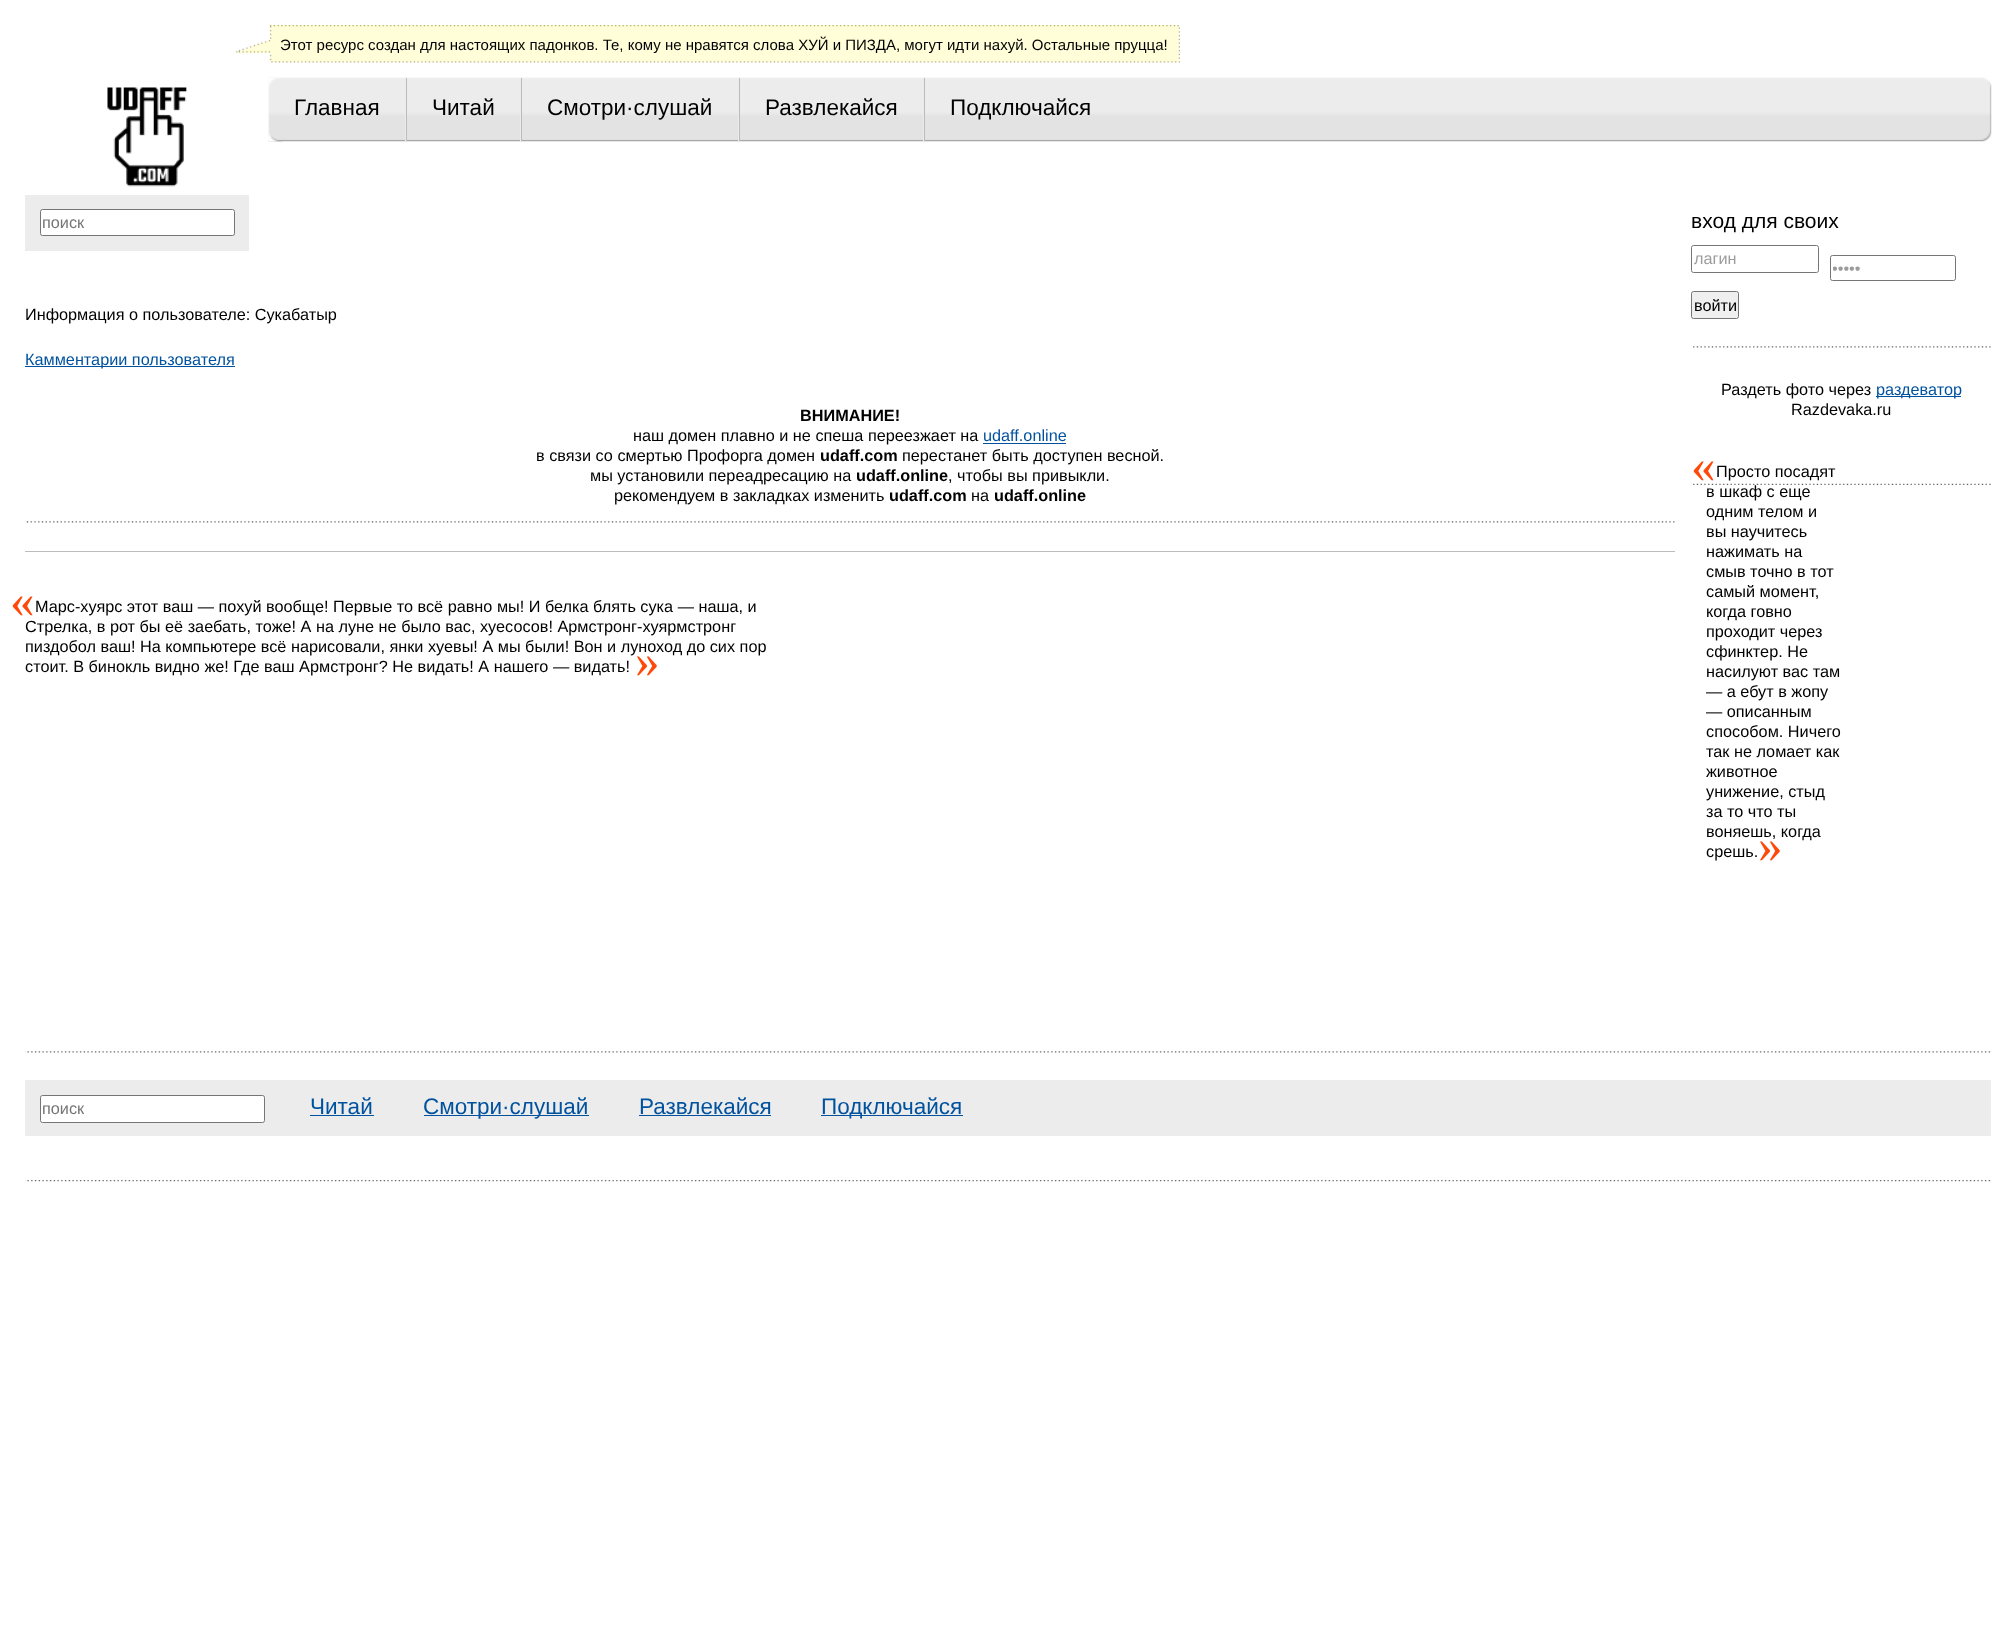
<svg xmlns="http://www.w3.org/2000/svg" width="2016" height="1628" viewBox="0 0 2016 1628">
  <defs>
    <clipPath id="clip1"><path d="M1833 259h121v19H1833z"/></clipPath>
  </defs>
  <rect width="100%" height="100%" fill="#fff"/>
  <image x="236" y="25" width="944" height="38" href="img/1.png"/>
  <image x="107" y="87" width="80" height="100" href="img/2.png"/>
  <image x="268" y="77" width="1724" height="65" href="img/3.png"/>
  <image x="268" y="78" width="15" height="64" href="img/4.png"/>
  <path d="M405 78h1v63H405z" fill="#ebebeb"/>
  <path d="M520 78h1v63H520z" fill="#ebebeb"/>
  <path d="M406 78h1v63H406z" fill="#bbb"/>
  <path d="M738 78h1v63H738z" fill="#ebebeb"/>
  <path d="M521 78h1v63H521z" fill="#bbb"/>
  <path d="M923 78h1v63H923z" fill="#ebebeb"/>
  <path d="M739 78h1v63H739z" fill="#bbb"/>
  <path d="M924 78h1v63H924z" fill="#bbb"/>
  <path d="M25 195h224v56H25z" fill="#ececec"/>
  <rect x="40.5" y="209.5" width="194" height="26" rx="2" fill="#fff" stroke="#767676"/>
  <path d="M25 366h210v1H25z" fill="#00529f"/>
  <image x="26" y="521" width="1649" height="2" href="img/5.png"/>
  <path d="M983 443h83v1H983z" fill="#00529f"/>
  <path d="M25 551h1650v1H25z" fill="#bcbcbc"/>
  <image x="1693" y="346" width="298" height="2" href="img/6.png"/>
  <rect x="1691.5" y="245.5" width="127" height="27" rx="2" fill="none" stroke="#767676"/>
  <rect x="1830.5" y="255.5" width="125" height="25" rx="2" fill="none" stroke="#767676"/>
  <rect x="1691.5" y="291.5" width="47" height="27" rx="2" fill="#efefef" stroke="#767676"/>
  <path d="M1876 396h85v1H1876z" fill="#00529f"/>
  <image x="1693" y="483" width="298" height="2" href="img/7.png"/>
  <image x="25" y="1051" width="1966" height="2" href="img/8.png"/>
  <image x="25" y="1180" width="1966" height="2" href="img/9.png"/>
  <path d="M25 1080h1966v56H25z" fill="#ececec"/>
  <rect x="40.5" y="1095.5" width="224" height="27" rx="2" fill="#fff" stroke="#767676"/>
  <path d="M310 1115h64v1H310z" fill="#00529f"/>
  <path d="M424 1115h165v1H424z" fill="#00529f"/>
  <path d="M639 1115h132v1H639z" fill="#00529f"/>
  <path d="M821 1115h142v1H821z" fill="#00529f"/>
  <text x="280" y="50" font-family="Liberation Sans" font-size="15" fill="#000">Этот ресурс создан для настоящих падонков. Те, кому не нравятся слова ХУЙ и ПИЗДА, могут идти нахуй. Остальные пруцца!</text>
  <g font-family="Liberation Sans" font-size="22.5" fill="#000">
    <text x="294" y="115">Главная</text>
    <text x="432" y="115">Читай</text>
    <text x="547" y="115">Смотри·слушай</text>
    <text x="765" y="115">Развлекайся</text>
    <text x="950" y="115">Подключайся</text>
  </g>
  <text x="42" y="228" font-family="Liberation Sans" font-size="16.25" fill="#757575">поиск</text>
  <text x="25" y="320" font-family="Liberation Sans" font-size="16.25" fill="#000">Информация о пользователе: Сукабатыр</text>
  <text x="25" y="365" font-family="Liberation Sans" font-size="16.25" fill="#00529f">Камментарии пользователя</text>
  <text x="800" y="421" font-family="Liberation Sans" font-size="16.25" font-weight="bold" fill="#000">ВНИМАНИЕ!</text>
  <text x="633" y="441" font-family="Liberation Sans" font-size="16.25" fill="#000">наш домен плавно и не спеша переезжает на</text>
  <text x="983" y="441" font-family="Liberation Sans" font-size="16.25" fill="#00529f">udaff.online</text>
  <text x="536" y="461" font-family="Liberation Sans" font-size="16.25" fill="#000">в связи со смертью Профорга домен</text>
  <text x="820" y="461" font-family="Liberation Sans" font-size="16.25" font-weight="bold" fill="#000">udaff.com</text>
  <g font-family="Liberation Sans" font-size="16.25" fill="#000">
    <text x="902" y="461">перестанет быть доступен весной.</text>
    <text x="590" y="481">мы установили переадресацию на</text>
  </g>
  <text x="856" y="481" font-family="Liberation Sans" font-size="16.25" font-weight="bold" fill="#000">udaff.online</text>
  <g font-family="Liberation Sans" font-size="16.25" fill="#000">
    <text x="948" y="481">, чтобы вы привыкли.</text>
    <text x="614" y="501">рекомендуем в закладках изменить</text>
  </g>
  <text x="889" y="501" font-family="Liberation Sans" font-size="16.25" font-weight="bold" fill="#000">udaff.com</text>
  <text x="971" y="501" font-family="Liberation Sans" font-size="16.25" fill="#000">на</text>
  <text x="994" y="501" font-family="Liberation Sans" font-size="16.25" font-weight="bold" fill="#000">udaff.online</text>
  <text x="10" y="617" font-family="Liberation Serif" font-size="49" fill="#ff490b">«</text>
  <g font-family="Liberation Sans" font-size="16.25" fill="#000">
    <text x="35" y="612">Марс-хуярс этот ваш — похуй вообще! Первые то всё равно мы! И белка блять сука — наша, и</text>
    <text x="25" y="632">Стрелка, в рот бы её заебать, тоже! А на луне не было вас, хуесосов! Армстронг-хуярмстронг</text>
    <text x="25" y="652">пиздобол ваш! На компьютере всё нарисовали, янки хуевы! А мы были! Вон и луноход до сих пор</text>
    <text x="25" y="672">стоит. В бинокль видно же! Где ваш Армстронг? Не видать! А нашего — видать!</text>
  </g>
  <text x="635" y="677" font-family="Liberation Serif" font-size="49" fill="#ff490b">»</text>
  <text x="1691" y="228" font-family="Liberation Sans" font-size="21" fill="#000">вход для своих</text>
  <text x="1694" y="264" font-family="Liberation Sans" font-size="16.25" fill="#9c9c9c">лагин</text>
  <g clip-path="url(#clip1)">
    <text x="1832" y="274" font-family="Liberation Sans" font-size="16.25" fill="#9c9c9c">•••••</text>
  </g>
  <g font-family="Liberation Sans" font-size="16.25" fill="#000">
    <text x="1694" y="311">войти</text>
    <text x="1721" y="395">Раздеть фото через</text>
  </g>
  <text x="1876" y="395" font-family="Liberation Sans" font-size="16.25" fill="#00529f">раздеватор</text>
  <text x="1791" y="415" font-family="Liberation Sans" font-size="16.25" fill="#000">Razdevaka.ru</text>
  <text x="1691" y="482" font-family="Liberation Serif" font-size="49" fill="#ff490b">«</text>
  <g font-family="Liberation Sans" font-size="16.25" fill="#000">
    <text x="1716" y="477">Просто посадят</text>
    <text x="1706" y="497">в шкаф с еще</text>
    <text x="1706" y="517">одним телом и</text>
    <text x="1706" y="537">вы научитесь</text>
    <text x="1706" y="557">нажимать на</text>
    <text x="1706" y="577">смыв точно в тот</text>
    <text x="1706" y="597">самый момент,</text>
    <text x="1706" y="617">когда говно</text>
    <text x="1706" y="637">проходит через</text>
    <text x="1706" y="657">сфинктер. Не</text>
    <text x="1706" y="677">насилуют вас там</text>
    <text x="1706" y="697">— а ебут в жопу</text>
    <text x="1706" y="717">— описанным</text>
    <text x="1706" y="737">способом. Ничего</text>
    <text x="1706" y="757">так не ломает как</text>
    <text x="1706" y="777">животное</text>
    <text x="1706" y="797">унижение, стыд</text>
    <text x="1706" y="817">за то что ты</text>
    <text x="1706" y="837">воняешь, когда</text>
    <text x="1706" y="857">срешь.</text>
  </g>
  <text x="1758" y="862" font-family="Liberation Serif" font-size="49" fill="#ff490b">»</text>
  <text x="42" y="1114" font-family="Liberation Sans" font-size="16.25" fill="#757575">поиск</text>
  <g font-family="Liberation Sans" font-size="22.5" fill="#00529f">
    <text x="310" y="1114">Читай</text>
    <text x="423" y="1114">Смотри·слушай</text>
    <text x="639" y="1114">Развлекайся</text>
    <text x="821" y="1114">Подключайся</text>
  </g>
</svg>
